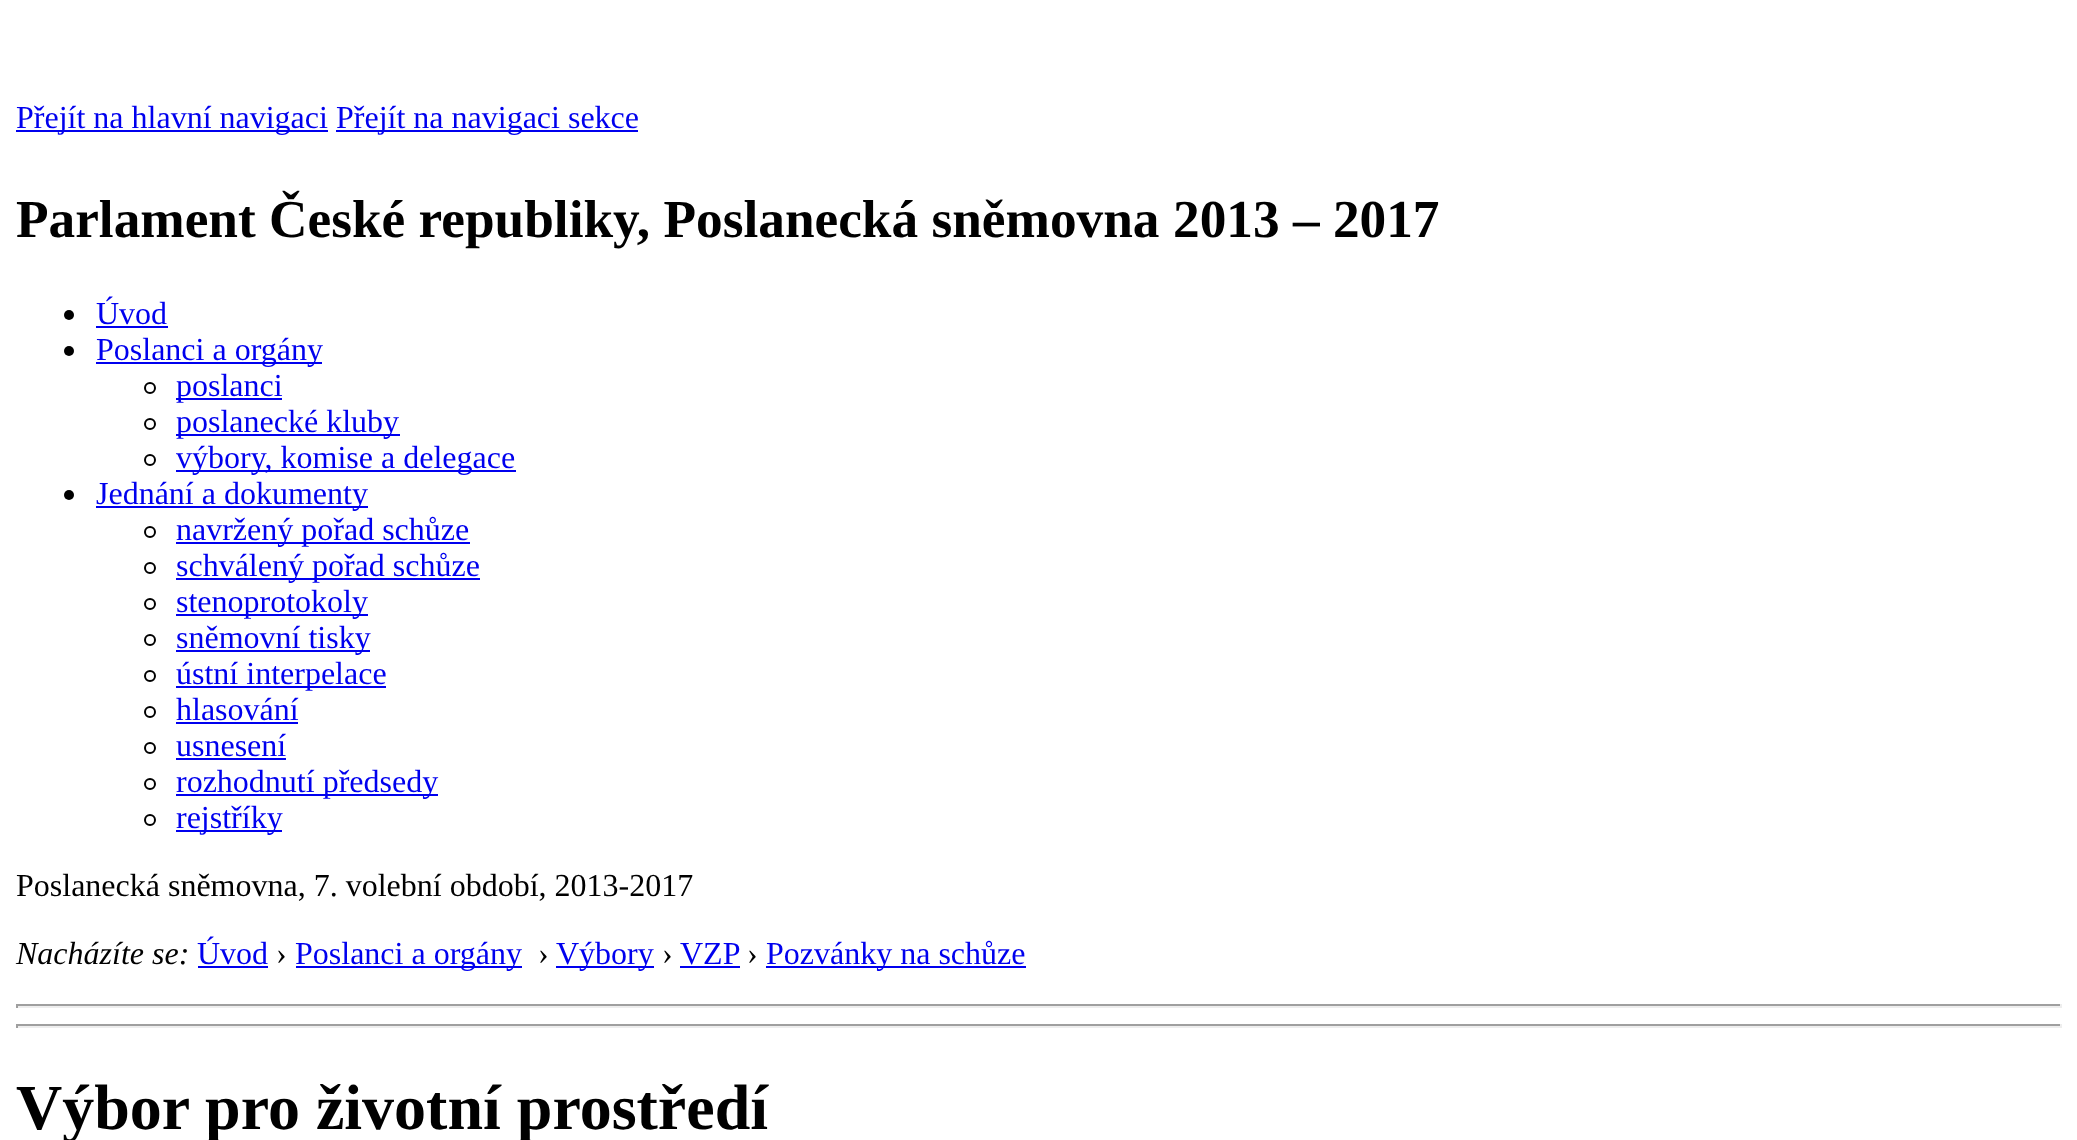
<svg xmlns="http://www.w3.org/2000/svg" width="2077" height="1140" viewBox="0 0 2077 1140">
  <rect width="100%" height="100%" fill="#fff"/>
  <path d="M16 130h312v2H16z" fill="#00e"/>
  <path d="M336 130h302v2H336z" fill="#00e"/>
  <circle cx="69" cy="315" r="5" fill="#000"/>
  <path d="M96 326h72v2H96z" fill="#00e"/>
  <circle cx="69" cy="351" r="5" fill="#000"/>
  <path d="M96 362h226v2H96z" fill="#00e"/>
  <circle cx="150" cy="388" r="5" fill="none" stroke="#000" stroke-width="2"/>
  <path d="M176 398h106v2H176z" fill="#00e"/>
  <circle cx="150" cy="424" r="5" fill="none" stroke="#000" stroke-width="2"/>
  <path d="M176 434h224v2H176z" fill="#00e"/>
  <circle cx="150" cy="460" r="5" fill="none" stroke="#000" stroke-width="2"/>
  <path d="M176 470h340v2H176z" fill="#00e"/>
  <circle cx="69" cy="495" r="5" fill="#000"/>
  <path d="M96 506h272v2H96z" fill="#00e"/>
  <circle cx="150" cy="532" r="5" fill="none" stroke="#000" stroke-width="2"/>
  <path d="M176 542h294v2H176z" fill="#00e"/>
  <circle cx="150" cy="568" r="5" fill="none" stroke="#000" stroke-width="2"/>
  <path d="M176 578h304v2H176z" fill="#00e"/>
  <circle cx="150" cy="604" r="5" fill="none" stroke="#000" stroke-width="2"/>
  <path d="M176 614h192v2H176z" fill="#00e"/>
  <circle cx="150" cy="640" r="5" fill="none" stroke="#000" stroke-width="2"/>
  <path d="M176 650h194v2H176z" fill="#00e"/>
  <circle cx="150" cy="676" r="5" fill="none" stroke="#000" stroke-width="2"/>
  <path d="M176 686h210v2H176z" fill="#00e"/>
  <circle cx="150" cy="712" r="5" fill="none" stroke="#000" stroke-width="2"/>
  <path d="M176 722h122v2H176z" fill="#00e"/>
  <circle cx="150" cy="748" r="5" fill="none" stroke="#000" stroke-width="2"/>
  <path d="M176 758h110v2H176z" fill="#00e"/>
  <circle cx="150" cy="784" r="5" fill="none" stroke="#000" stroke-width="2"/>
  <path d="M176 794h262v2H176z" fill="#00e"/>
  <circle cx="150" cy="820" r="5" fill="none" stroke="#000" stroke-width="2"/>
  <path d="M176 830h106v2H176z" fill="#00e"/>
  <path d="M198 966h70v2H198z" fill="#00e"/>
  <path d="M296 966h226v2H296z" fill="#00e"/>
  <path d="M556 966h98v2H556z" fill="#00e"/>
  <path d="M680 966h60v2H680z" fill="#00e"/>
  <path d="M766 966h260v2H766z" fill="#00e"/>
  <path d="M16 1004h2046v2H16z" fill="#9f9f9f"/>
  <path d="M2060 1004h2v4H2060z" fill="#eee"/>
  <path d="M16 1006h2046v2H16z" fill="#eee"/>
  <path d="M16 1004h2v4H16z" fill="#9f9f9f"/>
  <path d="M16 1024h2046v2H16z" fill="#9f9f9f"/>
  <path d="M2060 1024h2v4H2060z" fill="#eee"/>
  <path d="M16 1026h2046v2H16z" fill="#eee"/>
  <path d="M16 1024h2v4H16z" fill="#9f9f9f"/>
  <g font-family="Liberation Serif" font-size="32" fill="#00e">
    <text x="16" y="128">Přejít na hlavní navigaci</text>
    <text x="336" y="128">Přejít na navigaci sekce</text>
  </g>
  <g font-family="Liberation Serif" font-size="53.3" font-weight="bold" fill="#000">
    <text x="16" y="237">Parlament České republiky, Poslanecká sněmovna</text>
    <text x="1173" y="237">2013 – 2017</text>
  </g>
  <g font-family="Liberation Serif" font-size="32" fill="#00e">
    <text x="96" y="324">Úvod</text>
    <text x="96" y="360">Poslanci a orgány</text>
    <text x="176" y="396">poslanci</text>
    <text x="176" y="432">poslanecké kluby</text>
    <text x="176" y="468">výbory, komise a delegace</text>
    <text x="96" y="504">Jednání a dokumenty</text>
    <text x="176" y="540">navržený pořad schůze</text>
    <text x="176" y="576">schválený pořad schůze</text>
    <text x="176" y="612">stenoprotokoly</text>
    <text x="176" y="648">sněmovní tisky</text>
    <text x="176" y="684">ústní interpelace</text>
    <text x="176" y="720">hlasování</text>
    <text x="176" y="756">usnesení</text>
    <text x="176" y="792">rozhodnutí předsedy</text>
    <text x="176" y="828">rejstříky</text>
  </g>
  <text x="16" y="896" font-family="Liberation Serif" font-size="32" fill="#000">Poslanecká sněmovna, 7. volební období, 2013-2017</text>
  <text x="16" y="964" font-family="Liberation Serif" font-size="32" font-style="italic" fill="#000">Nacházíte se:</text>
  <text x="197" y="964" font-family="Liberation Serif" font-size="32" fill="#00e">Úvod</text>
  <text x="276" y="964" font-family="Liberation Serif" font-size="32" fill="#000">›</text>
  <text x="295" y="964" font-family="Liberation Serif" font-size="32" fill="#00e">Poslanci a orgány</text>
  <text x="538" y="964" font-family="Liberation Serif" font-size="32" fill="#000">›</text>
  <text x="556" y="964" font-family="Liberation Serif" font-size="32" fill="#00e">Výbory</text>
  <text x="662" y="964" font-family="Liberation Serif" font-size="32" fill="#000">›</text>
  <text x="680" y="964" font-family="Liberation Serif" font-size="32" fill="#00e">VZP</text>
  <text x="747" y="964" font-family="Liberation Serif" font-size="32" fill="#000">›</text>
  <text x="766" y="964" font-family="Liberation Serif" font-size="32" fill="#00e">Pozvánky na schůze</text>
  <text x="16" y="1129" font-family="Liberation Serif" font-size="64" font-weight="bold" fill="#000">Výbor pro životní prostředí</text>
</svg>
